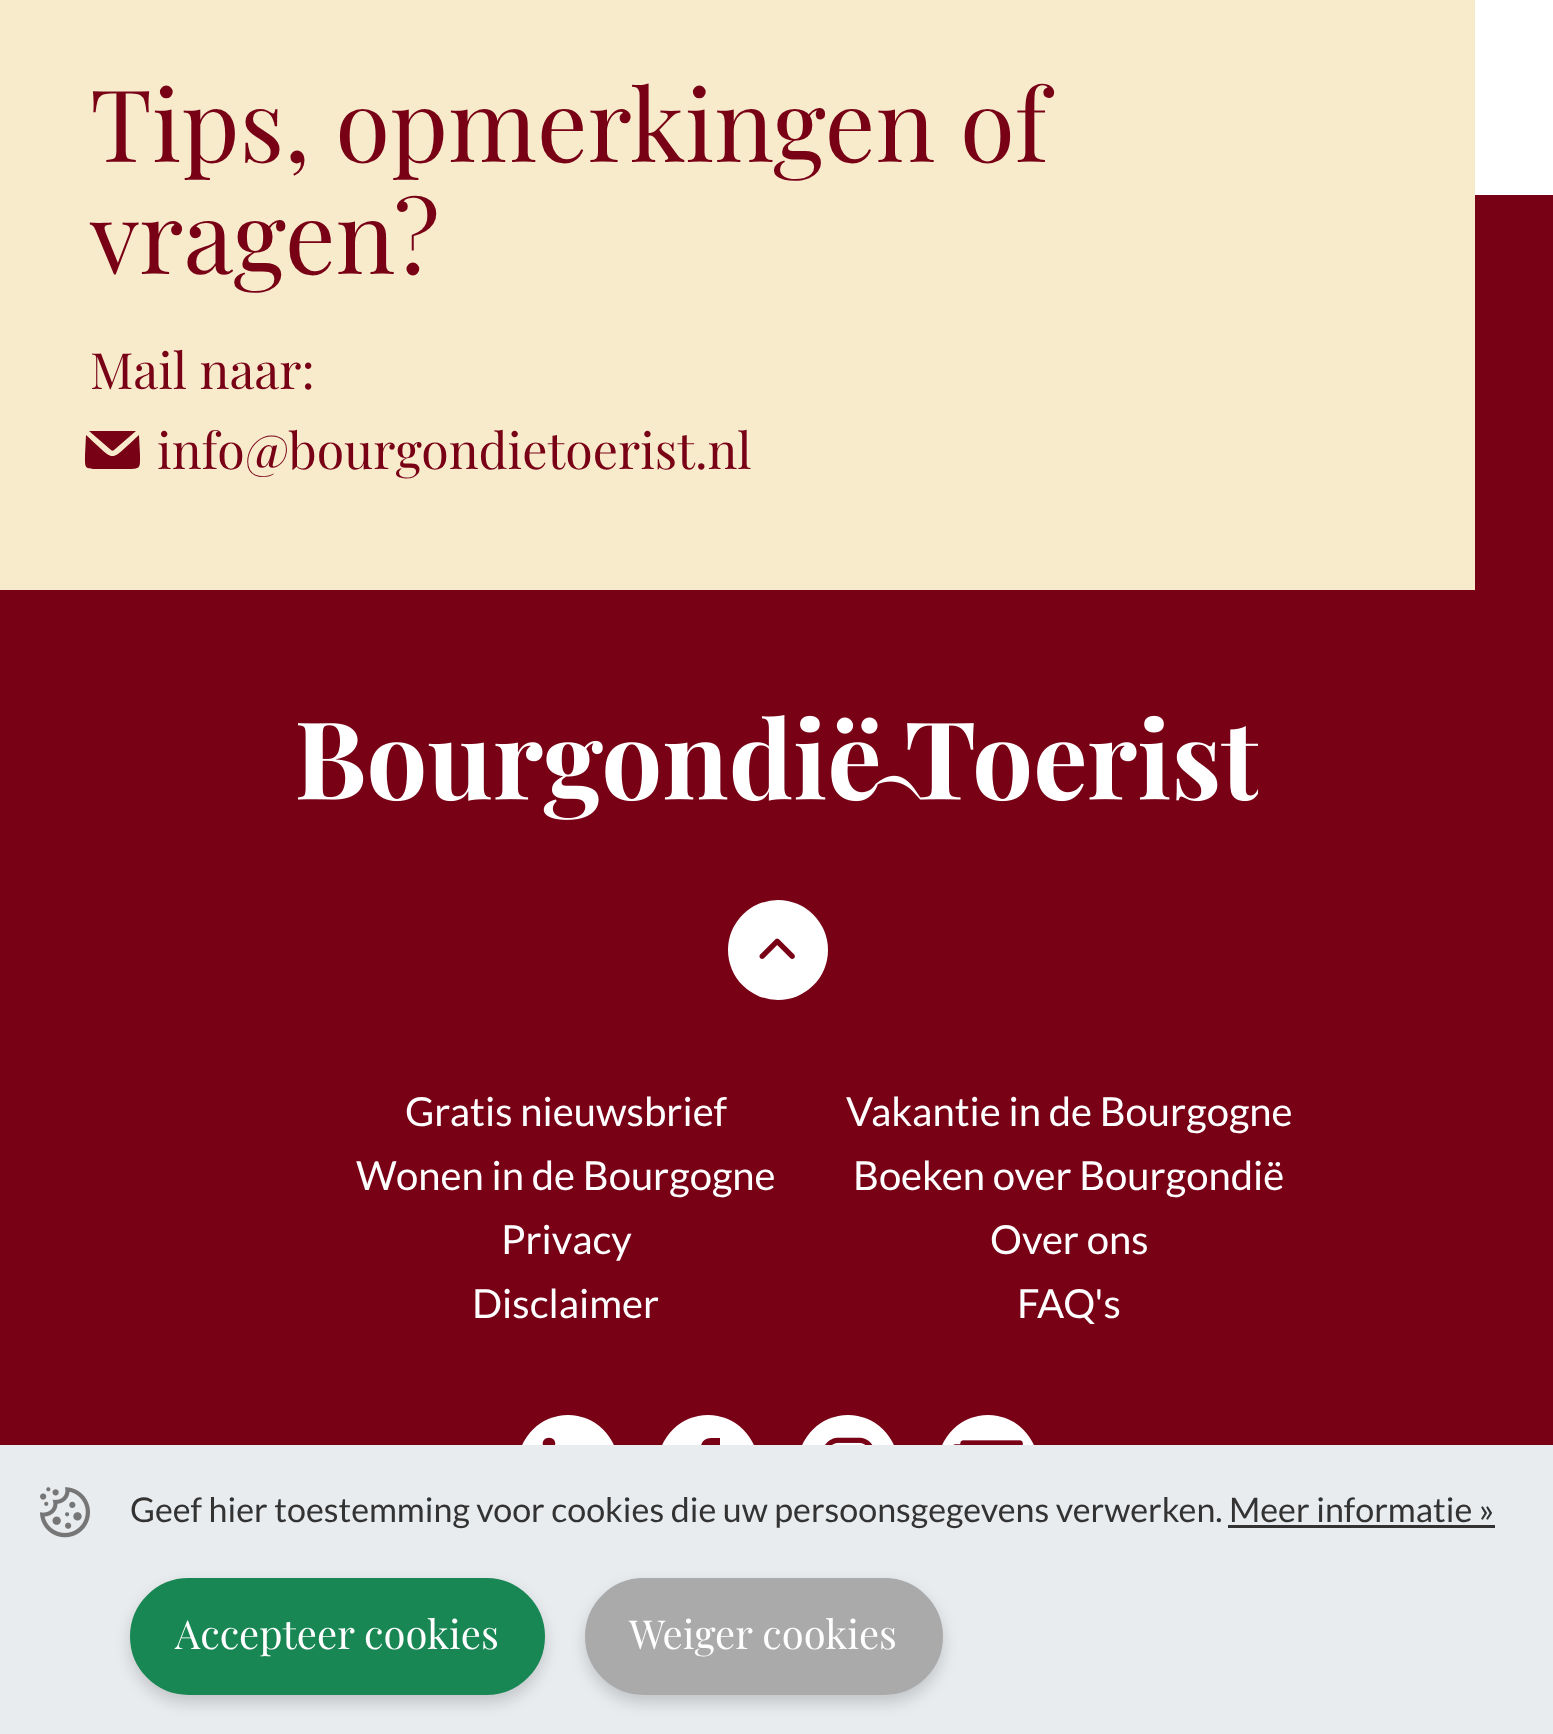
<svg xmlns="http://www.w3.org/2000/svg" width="1553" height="1734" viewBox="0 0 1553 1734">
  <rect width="100%" height="100%" fill="#fff"/>
  <path d="M0 195h1553v1250H0z" fill="#780116"/>
  <path d="M0 0h1475v590H0z" fill="#f8ebcc"/>
  <path d="M136 431L114 450C113 451 112 451 111 450L89 431ZM139 435L140 455C140 468 141 469 127 469H98C84 469 85 468 85 455L86 435C117 463 108 463 139 435Z" fill="#780116"/>
  <image x="298" y="715" width="960" height="105" href="img/1.png"/>
  <circle cx="778" cy="950" r="50" fill="#fff"/>
  <image x="759" y="938" width="36" height="21" href="img/2.png"/>
  <circle cx="568" cy="1465" r="50" fill="#fff"/>
  <image x="542" y="1437" width="14" height="8" href="img/3.png"/>
  <circle cx="708" cy="1465" r="50" fill="#fff"/>
  <path d="M701 1448V1455H696V1464H701V1490H712V1464H719L720 1455H712C712 1446 711 1447 720 1447V1438C712 1438 701 1436 701 1448Z" fill="#780116"/>
  <circle cx="848" cy="1465" r="50" fill="#fff"/>
  <image x="825" y="1437" width="48" height="8" href="img/4.png"/>
  <circle cx="988" cy="1465" r="50" fill="#fff"/>
  <image x="953" y="1440" width="70" height="5" href="img/5.png"/>
  <path d="M0 1445h1553v289H0z" fill="#e9ecef"/>
  <image x="40" y="1487" width="50" height="51" href="img/6.png"/>
  <path d="M1228 1525h267v3H1228z" fill="#333"/>
  <rect x="130" y="1585" width="415" height="118" rx="59" fill="#00000029" filter="blur(7.5px)"/>
  <rect x="131.5" y="1579.5" width="412" height="114" rx="57" fill="#198754" stroke="#198754" stroke-width="3"/>
  <rect x="585" y="1585" width="358" height="118" rx="59" fill="#00000029" filter="blur(7.5px)"/>
  <rect x="586.5" y="1579.5" width="355" height="114" rx="57" fill="#aaa" stroke="#aaa" stroke-width="3"/>
  <g font-family="Playfair Display" font-size="100" fill="#780116">
    <text x="90" y="162">Tips, opmerkingen of</text>
    <text x="90" y="274">vragen?</text>
  </g>
  <g font-family="Playfair Display" font-size="50" fill="#780116">
    <text x="90" y="389">Mail naar:</text>
    <text x="157" y="469">info@bourgondietoerist.nl</text>
  </g>
  <g font-family="Lato" font-size="40" fill="#fff">
    <text x="405" y="1126">Gratis nieuwsbrief</text>
    <text x="846" y="1126">Vakantie in de Bourgogne</text>
    <text x="356" y="1190">Wonen in de Bourgogne</text>
    <text x="853" y="1190">Boeken over Bourgondië</text>
    <text x="501" y="1254">Privacy</text>
    <text x="990" y="1254">Over ons</text>
    <text x="472" y="1318">Disclaimer</text>
    <text x="1017" y="1318">FAQ's</text>
  </g>
  <g font-family="Lato" font-size="34" fill="#333">
    <text x="130" y="1522">Geef hier toestemming voor cookies die uw persoonsgegevens verwerken.</text>
    <text x="1229" y="1522">Meer informatie »</text>
  </g>
  <g font-family="Playfair Display" font-size="40" fill="#fff">
    <text x="175" y="1649">Accepteer cookies</text>
    <text x="629" y="1649">Weiger cookies</text>
  </g>
</svg>
